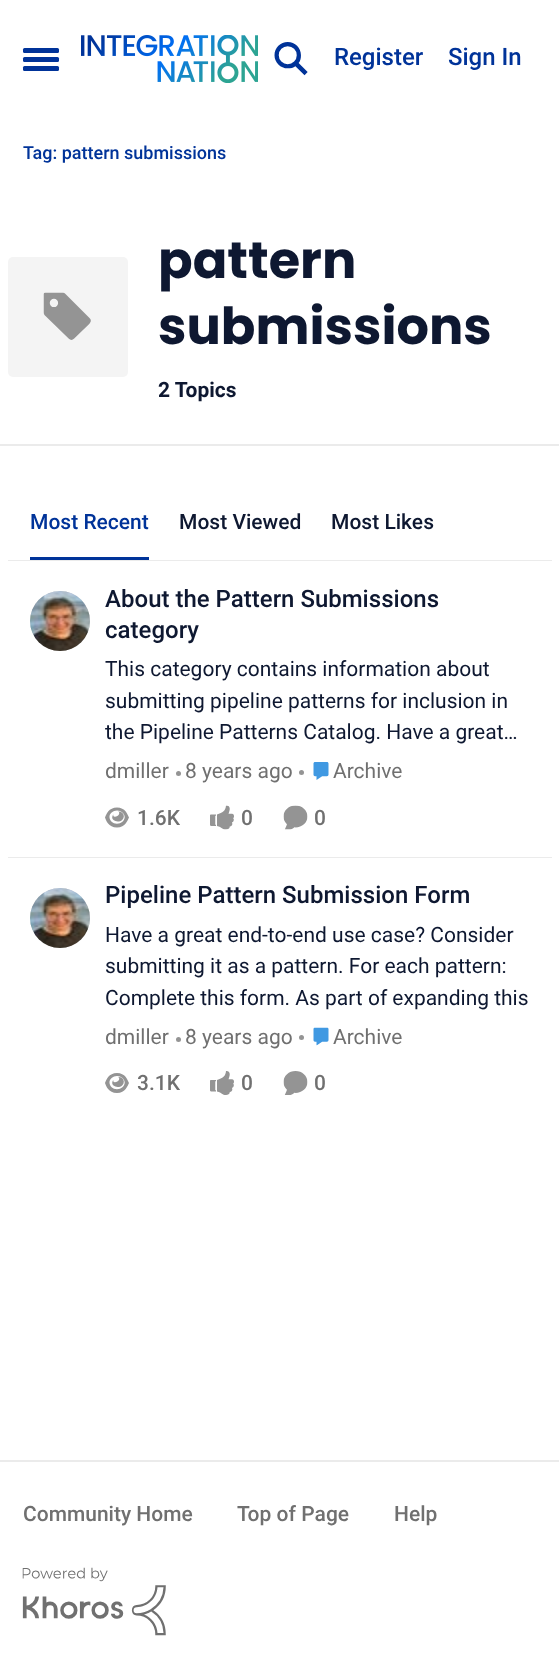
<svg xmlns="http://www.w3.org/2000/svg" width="559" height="1674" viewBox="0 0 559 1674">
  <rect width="100%" height="100%" fill="#fff"/>
  <rect x="23" y="48" width="36" height="5" rx="1.5" fill="#039"/>
  <rect x="23" y="57" width="36" height="5" rx="1.5" fill="#039"/>
  <rect x="23" y="66" width="36" height="5" rx="1.5" fill="#039"/>
  <image x="81" y="35" width="177" height="48" href="img/1.png"/>
  <image x="274" y="42" width="34" height="34" href="img/2.png"/>
  <path d="M0 444h559v2H0z" fill="#ebebeb"/>
  <rect x="8" y="257" width="120" height="120" rx="5" fill="#f4f4f4"/>
  <image x="43" y="292" width="48" height="48" href="img/3.png"/>
  <path d="M8 560h544v1H8z" fill="#ebebeb"/>
  <path d="M30 557h119v3H30z" fill="#039"/>
  <path d="M8 857h544v1H8z" fill="#ebebeb"/>
  <circle cx="60" cy="621" r="30" fill="#d9d9d9"/>
  <image x="30" y="591" width="60" height="60" href="img/4.png"/>
  <circle cx="178.5" cy="773.5" r="2.5" fill="#949494"/>
  <circle cx="301.5" cy="772.5" r="2.5" fill="#949494"/>
  <image x="313" y="762" width="16" height="18" href="img/5.png"/>
  <image x="105" y="807" width="24" height="21" href="img/6.png"/>
  <image x="210" y="805" width="24" height="25" href="img/7.png"/>
  <image x="283" y="805" width="25" height="25" href="img/8.png"/>
  <circle cx="60" cy="918" r="30" fill="#d9d9d9"/>
  <image x="30" y="888" width="60" height="60" href="img/4.png"/>
  <circle cx="178.5" cy="1039.5" r="2.5" fill="#949494"/>
  <circle cx="301.5" cy="1037.5" r="2.5" fill="#949494"/>
  <image x="313" y="1027" width="16" height="19" href="img/9.png"/>
  <image x="105" y="1073" width="24" height="20" href="img/10.png"/>
  <image x="210" y="1071" width="24" height="24" href="img/11.png"/>
  <image x="283" y="1071" width="25" height="24" href="img/12.png"/>
  <path d="M0 1460h559v2H0z" fill="#ebebeb"/>
  <image x="22" y="1567" width="144" height="69" href="img/13.png"/>
  <g font-family="Roboto" font-size="24" font-weight="500" fill="#039">
    <text x="334" y="65">Register</text>
    <text x="448" y="65">Sign In</text>
  </g>
  <text x="23" y="159" font-family="Roboto" font-size="18" font-weight="500" fill="#039">Tag: pattern submissions</text>
  <g font-family="Poppins" font-size="51" font-weight="bold" fill="#0e1831">
    <text x="158" y="278">pattern</text>
    <text x="158" y="344">submissions</text>
  </g>
  <text x="158" y="397" font-family="Roboto" font-size="21" font-weight="bold" fill="#0e1831">2 Topics</text>
  <text x="30" y="529" font-family="Roboto" font-size="21" font-weight="500" fill="#039">Most Recent</text>
  <g font-family="Roboto" font-size="21" font-weight="500" fill="#0e1831">
    <text x="179" y="529">Most Viewed</text>
    <text x="331" y="529">Most Likes</text>
  </g>
  <g font-family="Roboto" font-size="24" font-weight="500" fill="#0e1831">
    <text x="105" y="607">About the Pattern Submissions</text>
    <text x="105" y="638">category</text>
  </g>
  <g font-family="Roboto" font-size="21" fill="#0e1831">
    <text x="105" y="676">This category contains information about</text>
    <text x="105" y="708">submitting pipeline patterns for inclusion in</text>
    <text x="105" y="739">the Pipeline Patterns Catalog. Have a great…</text>
  </g>
  <g font-family="Roboto" font-size="21" fill="#707070">
    <text x="105" y="778">dmiller</text>
    <text x="185" y="778">8 years ago</text>
    <text x="333" y="778">Archive</text>
  </g>
  <g font-family="Roboto" font-size="21" font-weight="500" fill="#707070">
    <text x="137" y="825">1.6K</text>
    <text x="241" y="825">0</text>
    <text x="314" y="825">0</text>
  </g>
  <text x="105" y="903" font-family="Roboto" font-size="24" font-weight="500" fill="#0e1831">Pipeline Pattern Submission Form</text>
  <g font-family="Roboto" font-size="21" fill="#0e1831">
    <text x="105" y="942">Have a great end-to-end use case? Consider</text>
    <text x="105" y="973">submitting it as a pattern. For each pattern:</text>
    <text x="105" y="1005">Complete this form. As part of expanding this</text>
  </g>
  <g font-family="Roboto" font-size="21" fill="#707070">
    <text x="105" y="1044">dmiller</text>
    <text x="185" y="1044">8 years ago</text>
    <text x="333" y="1044">Archive</text>
  </g>
  <g font-family="Roboto" font-size="21" font-weight="500" fill="#707070">
    <text x="137" y="1090">3.1K</text>
    <text x="241" y="1090">0</text>
    <text x="314" y="1090">0</text>
    <text x="23" y="1521">Community Home</text>
    <text x="237" y="1521">Top of Page</text>
    <text x="394" y="1521">Help</text>
  </g>
</svg>
